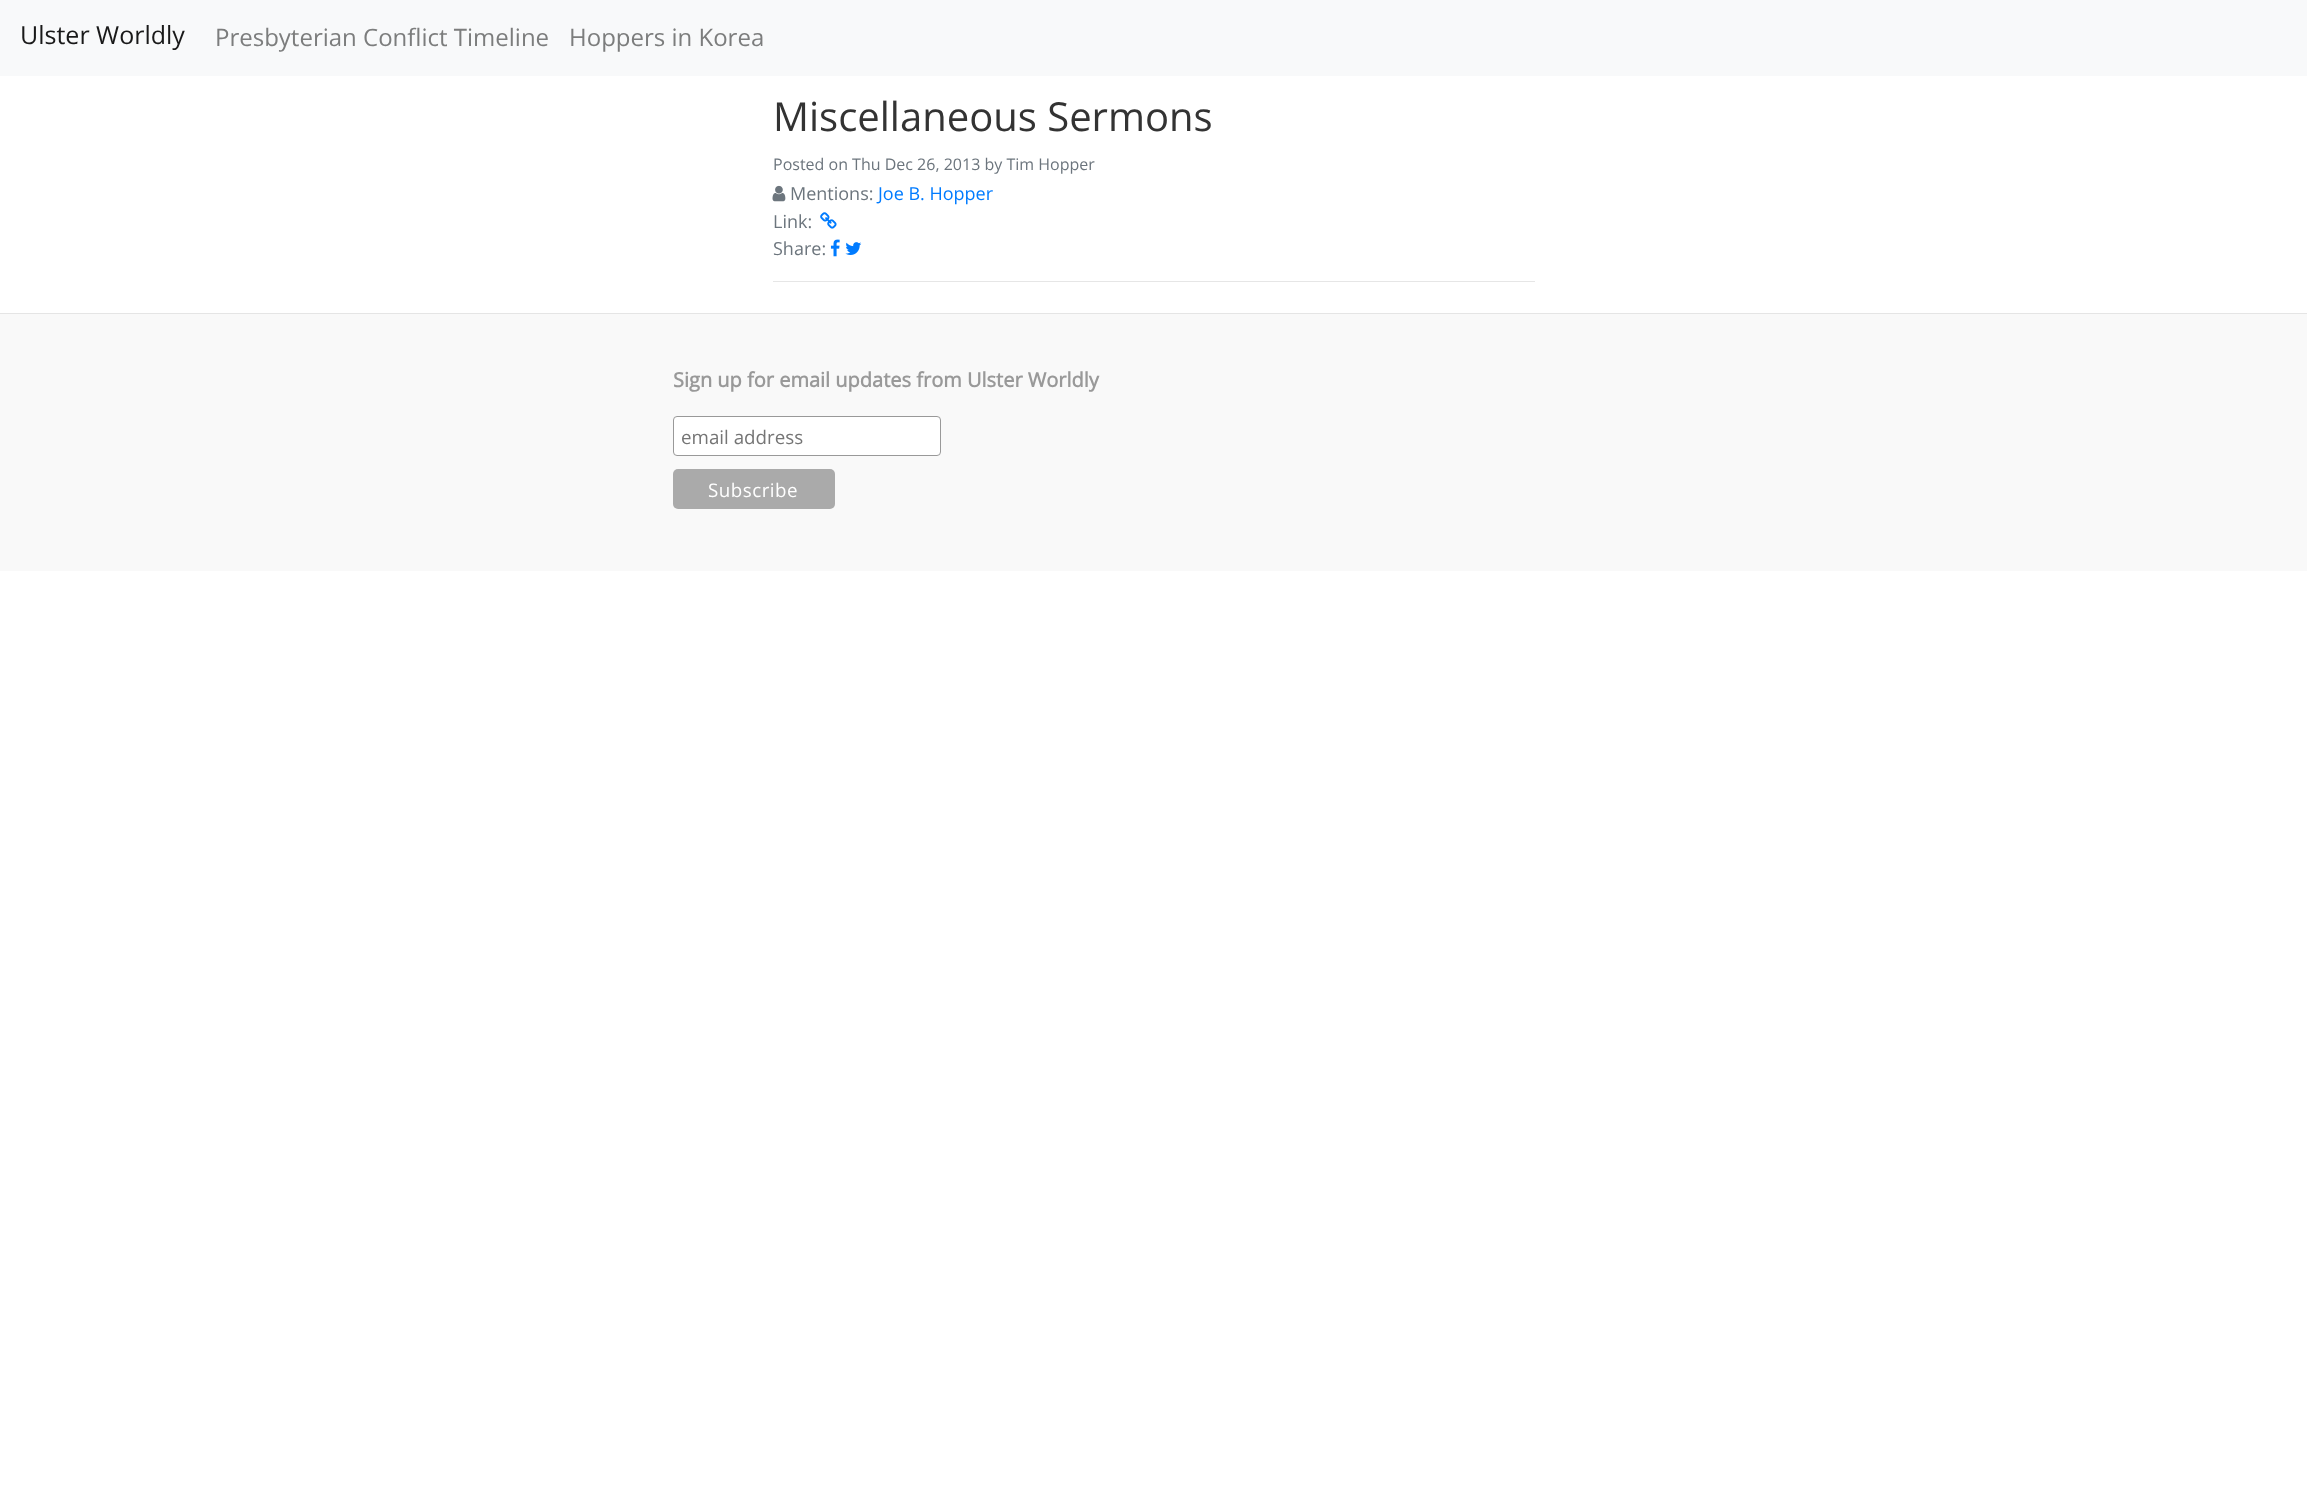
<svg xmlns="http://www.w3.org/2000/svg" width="2307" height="1506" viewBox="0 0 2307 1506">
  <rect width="100%" height="100%" fill="#fff"/>
  <path d="M0 0h2307v76H0z" fill="#f8f9fa"/>
  <image x="772" y="185" width="14" height="17" href="img/1.png"/>
  <image x="820" y="212" width="17" height="17" href="img/2.png"/>
  <image x="830" y="239" width="10" height="18" href="img/3.png"/>
  <image x="845" y="242" width="17" height="13" href="img/4.png"/>
  <path d="M773 281h762v1H773z" fill="#e6e6e6"/>
  <path d="M0 314h2307v257H0z" fill="#f9f9f9"/>
  <path d="M0 313h2307v1H0z" fill="#e5e5e5"/>
  <rect x="673.5" y="416.5" width="267" height="39" rx="3.5" fill="#fff" stroke="#999"/>
  <rect x="673" y="469" width="162" height="40" rx="5" fill="#aaa"/>
  <text x="20" y="44" font-family="Open Sans" font-size="25" fill="#191919">Ulster Worldly</text>
  <g font-family="Open Sans" font-size="24" fill="#7c7d7d">
    <text x="215" y="46">Presbyterian Conflict Timeline</text>
    <text x="569" y="46">Hoppers in Korea</text>
  </g>
  <text x="773" y="131" font-family="Open Sans" font-size="40" fill="#333">Miscellaneous Sermons</text>
  <text x="773" y="170" font-family="Open Sans" font-size="16" fill="#6c757d">Posted on Thu Dec 26, 2013 by Tim Hopper</text>
  <text x="790" y="200" font-family="Open Sans" font-size="18" fill="#6c757d">Mentions:</text>
  <text x="878" y="200" font-family="Open Sans" font-size="18" fill="#007bff">Joe B. Hopper</text>
  <g font-family="Open Sans" font-size="18" fill="#6c757d">
    <text x="773" y="228">Link:</text>
    <text x="773" y="255">Share:</text>
  </g>
  <text x="673" y="387" font-family="Open Sans" font-size="20" font-weight="bold" fill="#999">Sign up for email updates from Ulster Worldly</text>
  <text x="681" y="444" font-family="Open Sans" font-size="18.75" fill="#757575">email address</text>
  <text x="708" y="497" font-family="Open Sans" font-size="18.75" letter-spacing="0.5" fill="#fff">Subscribe</text>
</svg>
